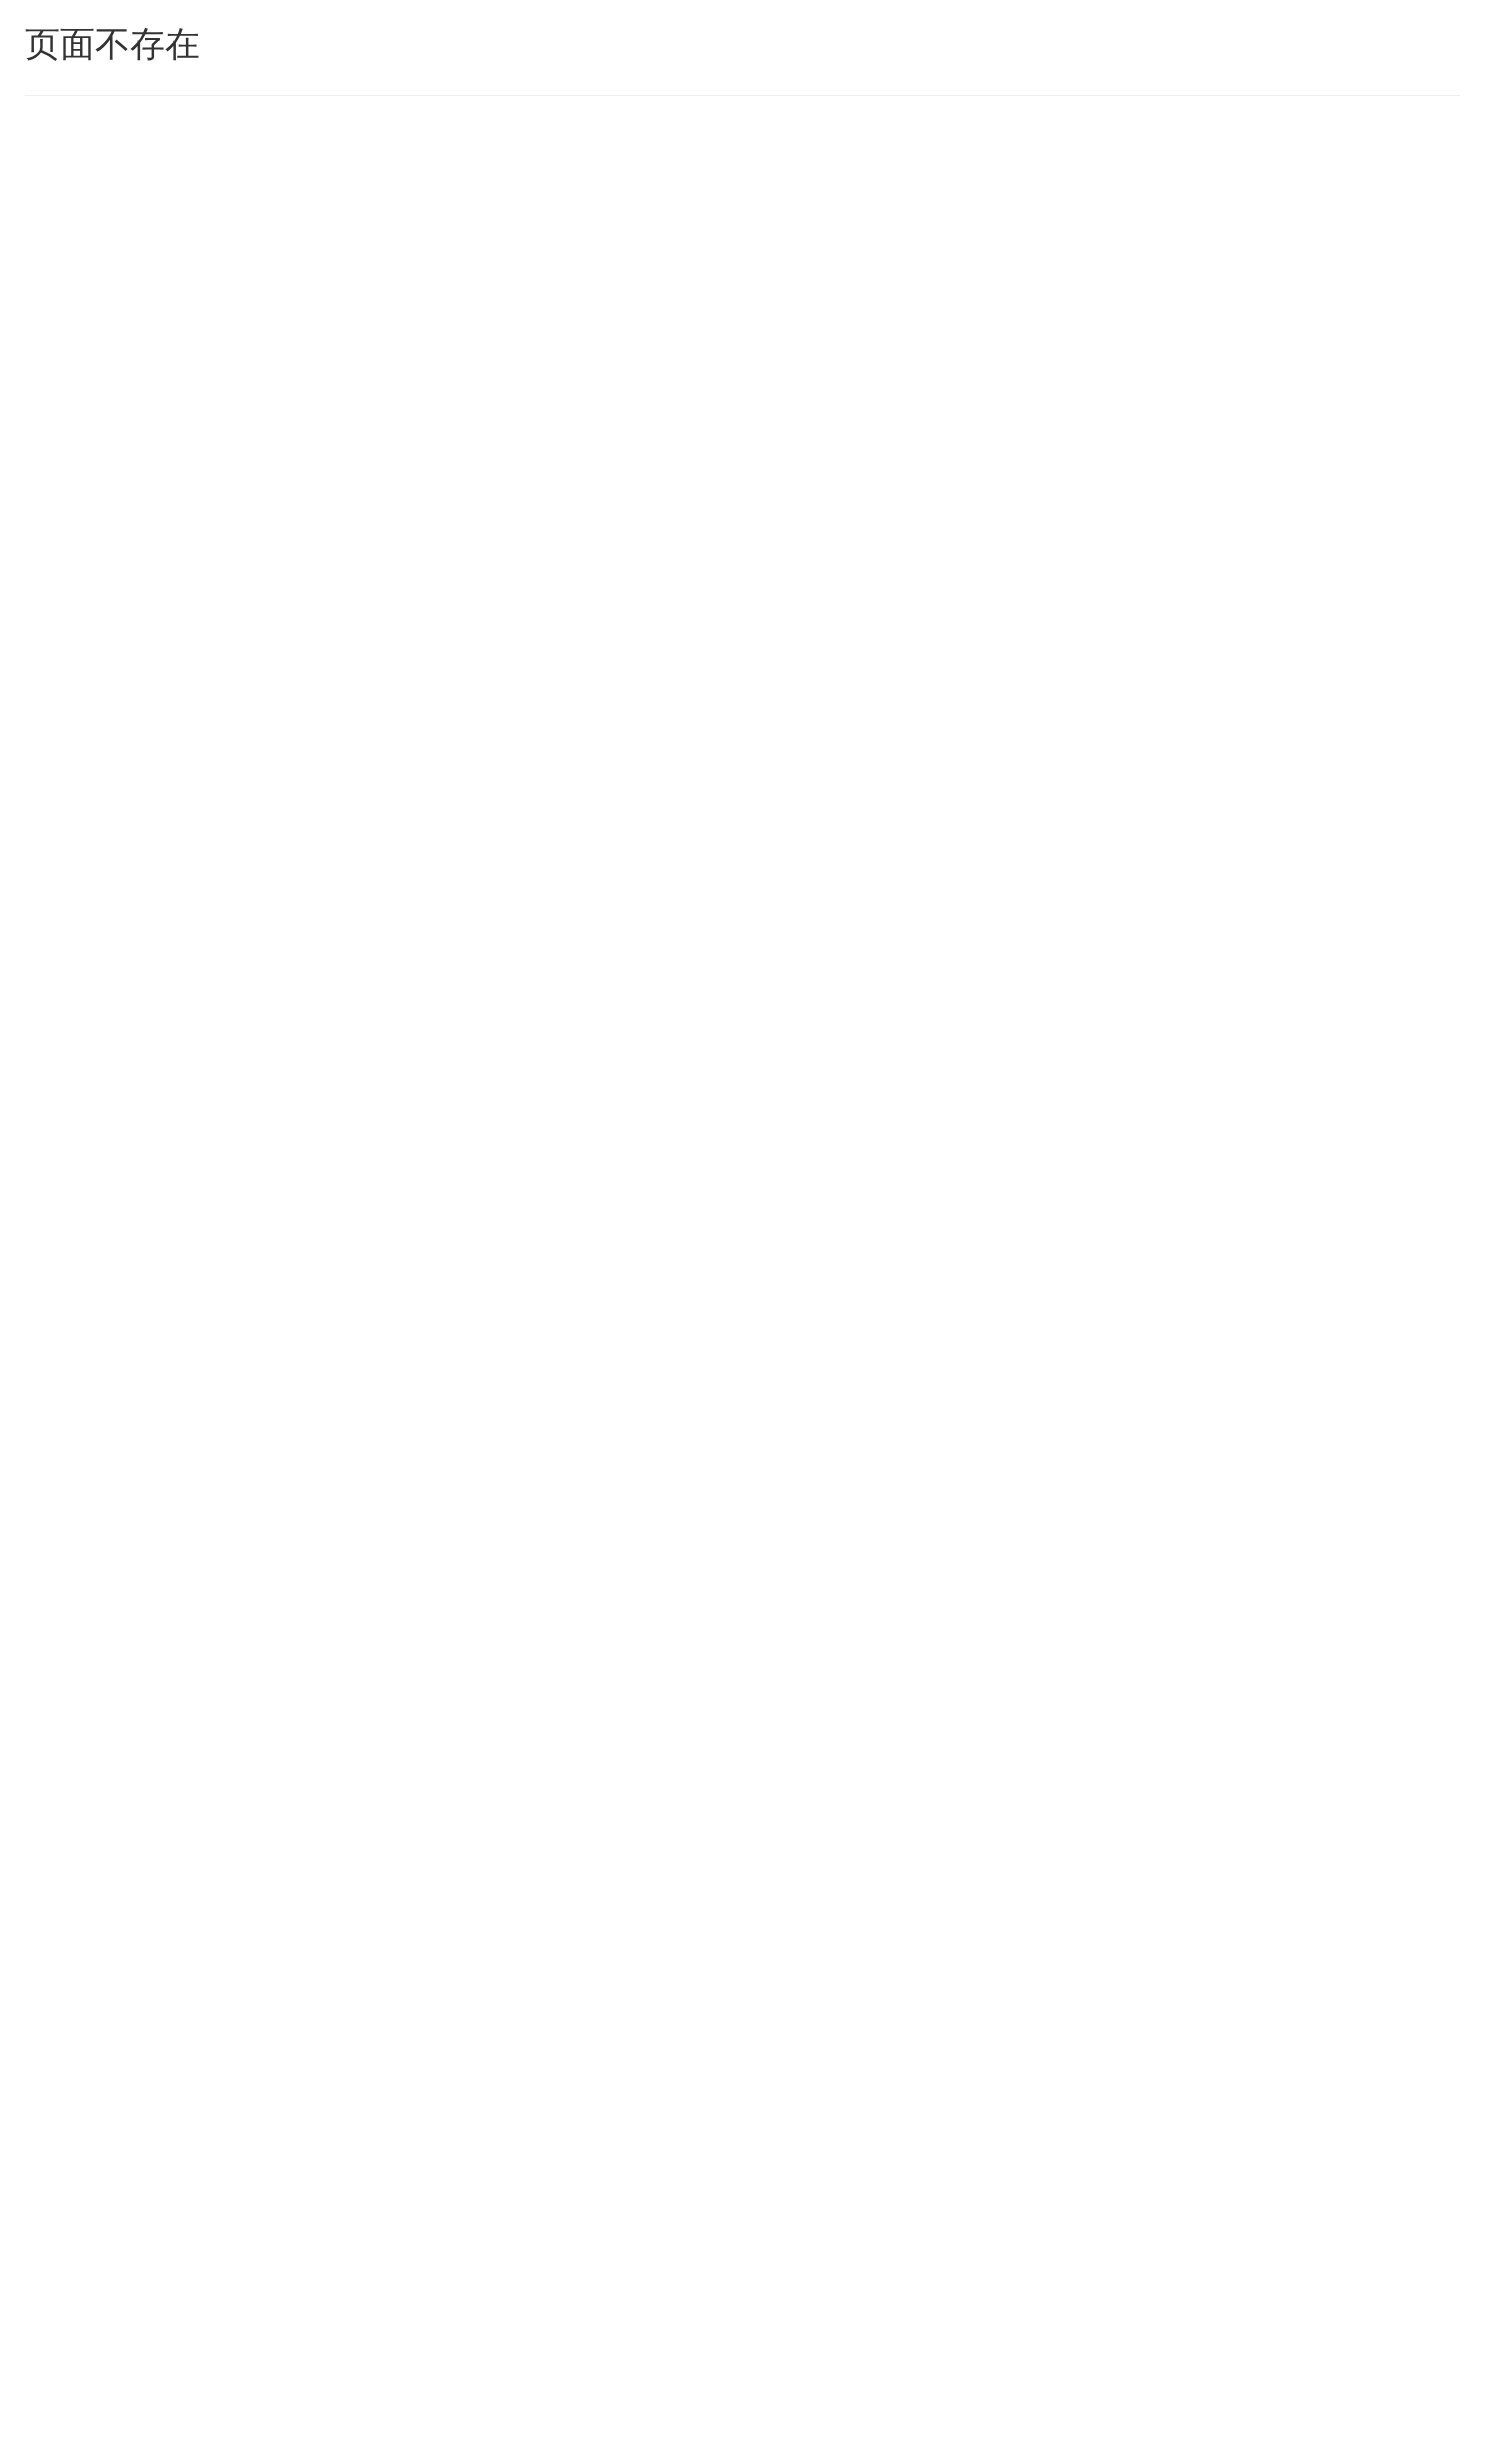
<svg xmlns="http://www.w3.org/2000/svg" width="1485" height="2443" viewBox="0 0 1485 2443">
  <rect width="100%" height="100%" fill="#fff"/>
  <path d="M25 95h1435v1H25z" fill="#eee"/>
  <text x="25" y="56" font-family="WenQuanYi Zen Hei" font-size="35" font-weight="500" fill="#333">页面不存在</text>
</svg>
